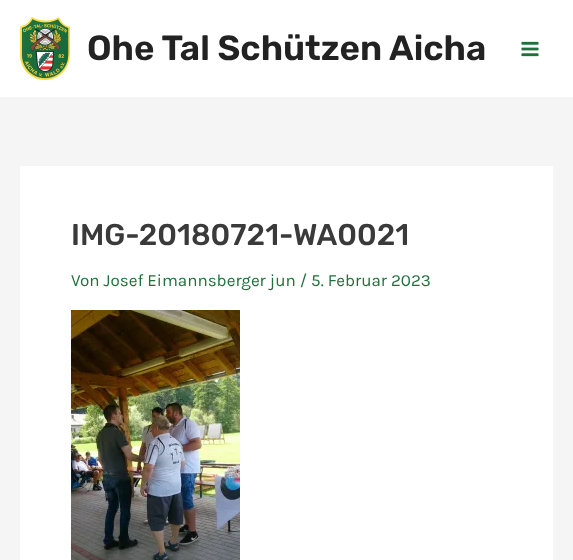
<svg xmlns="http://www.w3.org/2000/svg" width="573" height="560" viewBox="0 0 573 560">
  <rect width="100%" height="100%" fill="#f5f5f5"/>
  <path d="M0 0h573v97H0z" fill="#fff"/>
  <path d="M0 97h573v1H0z" fill="#f2f5f7"/>
  <image x="20" y="17" width="50" height="63" href="img/1.png"/>
  <image x="521" y="41" width="18" height="16" href="img/2.png"/>
  <path d="M20 166h533v394H20z" fill="#fff"/>
  <image x="71" y="310" width="169" height="250" href="img/3.png"/>
  <g font-family="Rubik" font-size="35" font-weight="600" fill="#222">
    <text x="87" y="60">Ohe Tal Schützen</text>
    <text x="389" y="60">Aicha</text>
  </g>
  <text x="71" y="245" font-family="Rubik" font-size="30" font-weight="500" fill="#3a3a3a">IMG-20180721-WA0021</text>
  <text x="71" y="286" font-family="Karla" font-size="17" fill="#20703b">Von Josef Eimannsberger jun / 5. Februar 2023</text>
</svg>
